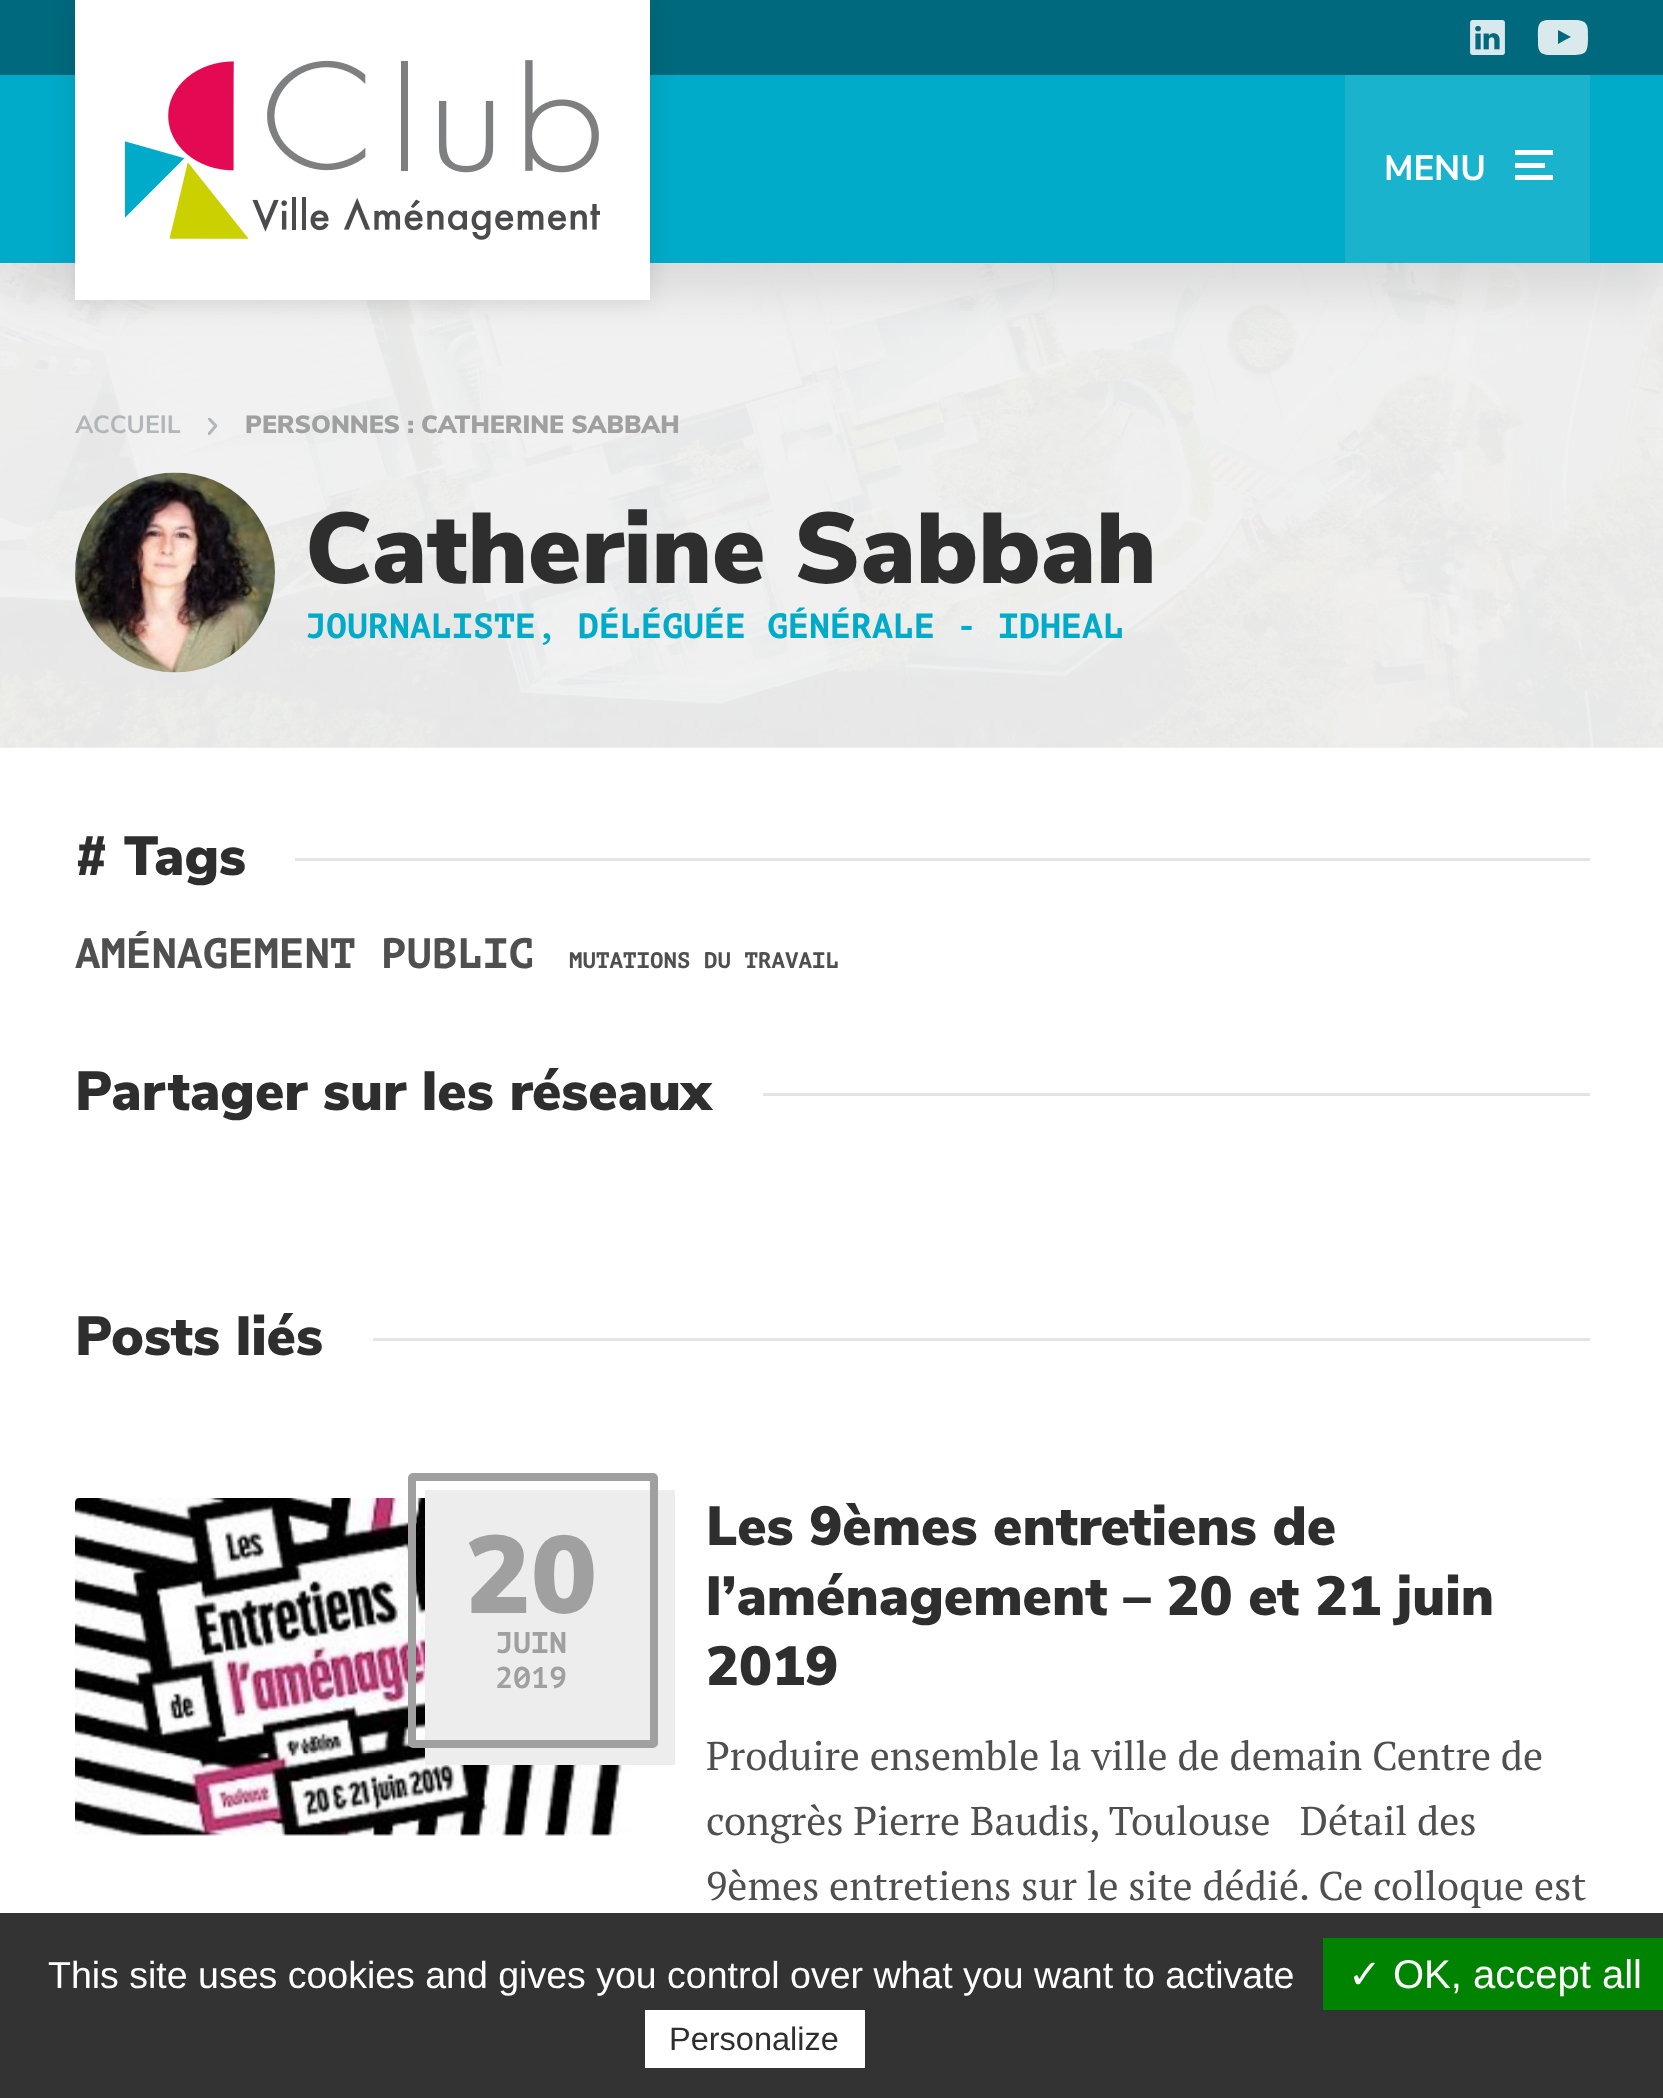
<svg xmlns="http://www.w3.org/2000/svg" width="1663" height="2098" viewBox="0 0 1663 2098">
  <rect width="100%" height="100%" fill="#fff"/>
  <path d="M0 747h1663v1H0z" fill="#f2f2f2"/>
  <image x="0" y="263" width="1663" height="485" href="img/3.png"/>
  <path d="M0 25h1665v263H0z" fill="#0000001a" filter="blur(25px)"/>
  <path d="M0 75h1663v188H0z" fill="#00aac9"/>
  <path d="M0 0h1663v75H0z" fill="#00697d"/>
  <path d="M75 0h575v300H75z" fill="#0000001a" filter="blur(12.5px)"/>
  <path d="M75 0h575v300H75z" fill="#fff"/>
  <image x="125" y="60" width="475" height="180" href="img/1.png"/>
  <image x="1470" y="20" width="35" height="35" href="img/2.png"/>
  <path d="M1588 37C1588 56 1585 55 1565 55H1548C1537 54 1538 47 1538 38C1538 28 1537 21 1547 20H1577C1589 21 1588 28 1588 37ZM1565 40L1571 37L1558 30V44Z" fill="#d9e9ec"/>
  <path d="M1345 75h245v188H1345z" fill="#1ab3ce"/>
  <path d="M1515 150h38v5H1515z" fill="#fff"/>
  <path d="M1515 163h30v5H1515z" fill="#fff"/>
  <path d="M1515 175h38v5H1515z" fill="#fff"/>
  <image x="208" y="418" width="10" height="17" href="img/4.png"/>
  <image x="75" y="472" width="200" height="201" href="img/5.png"/>
  <path d="M295 858h1295v3H295z" fill="#e3e4e5"/>
  <path d="M763 1093h827v3H763z" fill="#e3e4e5"/>
  <path d="M373 1338h1217v3H373z" fill="#e3e4e5"/>
  <image x="75" y="1498" width="558" height="338" href="img/6.png"/>
  <path d="M425 1490h250v275H425z" fill="#ededed"/>
  <rect x="412" y="1477" width="242" height="267" rx="1" fill="none" stroke="#a0a0a0" stroke-width="8"/>
  <path d="M0 1913h1663v185H0z" fill="#333"/>
  <path d="M1323 1938h340v72H1323z" fill="#008300"/>
  <path d="M645 2010h220v58H645z" fill="#fff"/>
  <text x="1384" y="180" font-family="Nunito Sans" font-size="35" font-weight="bold" fill="#fff">MENU</text>
  <text x="75" y="433" font-family="Nunito Sans" font-size="25" font-weight="bold" fill="#b0b6b9">ACCUEIL</text>
  <text x="245" y="433" font-family="Nunito Sans" font-size="25" font-weight="900" fill="#a0a0a0">PERSONNES : CATHERINE SABBAH</text>
  <text x="305" y="583" font-family="Nunito Sans" font-size="100" font-weight="900" fill="#2e2e2e">Catherine Sabbah</text>
  <text x="305" y="638" font-family="PT Mono" font-size="35" font-weight="bold" fill="#00aac9">JOURNALISTE, DÉLÉGUÉE GÉNÉRALE - IDHEAL</text>
  <text x="75" y="875" font-family="Nunito Sans" font-size="55" font-weight="900" fill="#2e2e2e"># Tags</text>
  <text x="75" y="968" font-family="PT Mono" font-size="42.5" font-weight="bold" fill="#4f4f4f">AMÉNAGEMENT PUBLIC</text>
  <text x="569" y="968" font-family="PT Mono" font-size="22.5" font-weight="bold" fill="#4f4f4f">MUTATIONS DU TRAVAIL</text>
  <g font-family="Nunito Sans" font-size="55" font-weight="900" fill="#2e2e2e">
    <text x="75" y="1110">Partager sur les réseaux</text>
    <text x="75" y="1355">Posts liés</text>
  </g>
  <text x="465" y="1613" font-family="Nunito Sans" font-size="110" font-weight="900" fill="#a0a0a0">20</text>
  <g font-family="PT Mono" font-size="30" font-weight="bold" fill="#a0a0a0">
    <text x="495" y="1653">JUIN</text>
    <text x="495" y="1688">2019</text>
  </g>
  <g font-family="Nunito Sans" font-size="55" font-weight="900" fill="#2e2e2e">
    <text x="706" y="1545">Les 9èmes entretiens de</text>
    <text x="706" y="1615">l’aménagement – 20 et 21 juin</text>
    <text x="706" y="1685">2019</text>
  </g>
  <g font-family="PT Serif" font-size="40" fill="#4f4f4f">
    <text x="706" y="1770">Produire ensemble la ville de demain Centre de</text>
    <text x="706" y="1835" xml:space="preserve">congrès Pierre Baudis, Toulouse   Détail des</text>
    <text x="706" y="1900">9èmes entretiens sur le site dédié. Ce colloque est</text>
  </g>
  <text x="48" y="1988" font-family="Liberation Sans" font-size="37.5" fill="#fff">This site uses cookies and gives you control over what you want to activate</text>
  <text x="1348" y="1988" font-family="DejaVu Sans" font-size="40" fill="#fff">✓</text>
  <text x="1393" y="1988" font-family="Liberation Sans" font-size="40" fill="#fff">OK, accept all</text>
  <text x="669" y="2050" font-family="Liberation Sans" font-size="32.5" fill="#2e2e2e">Personalize</text>
</svg>
